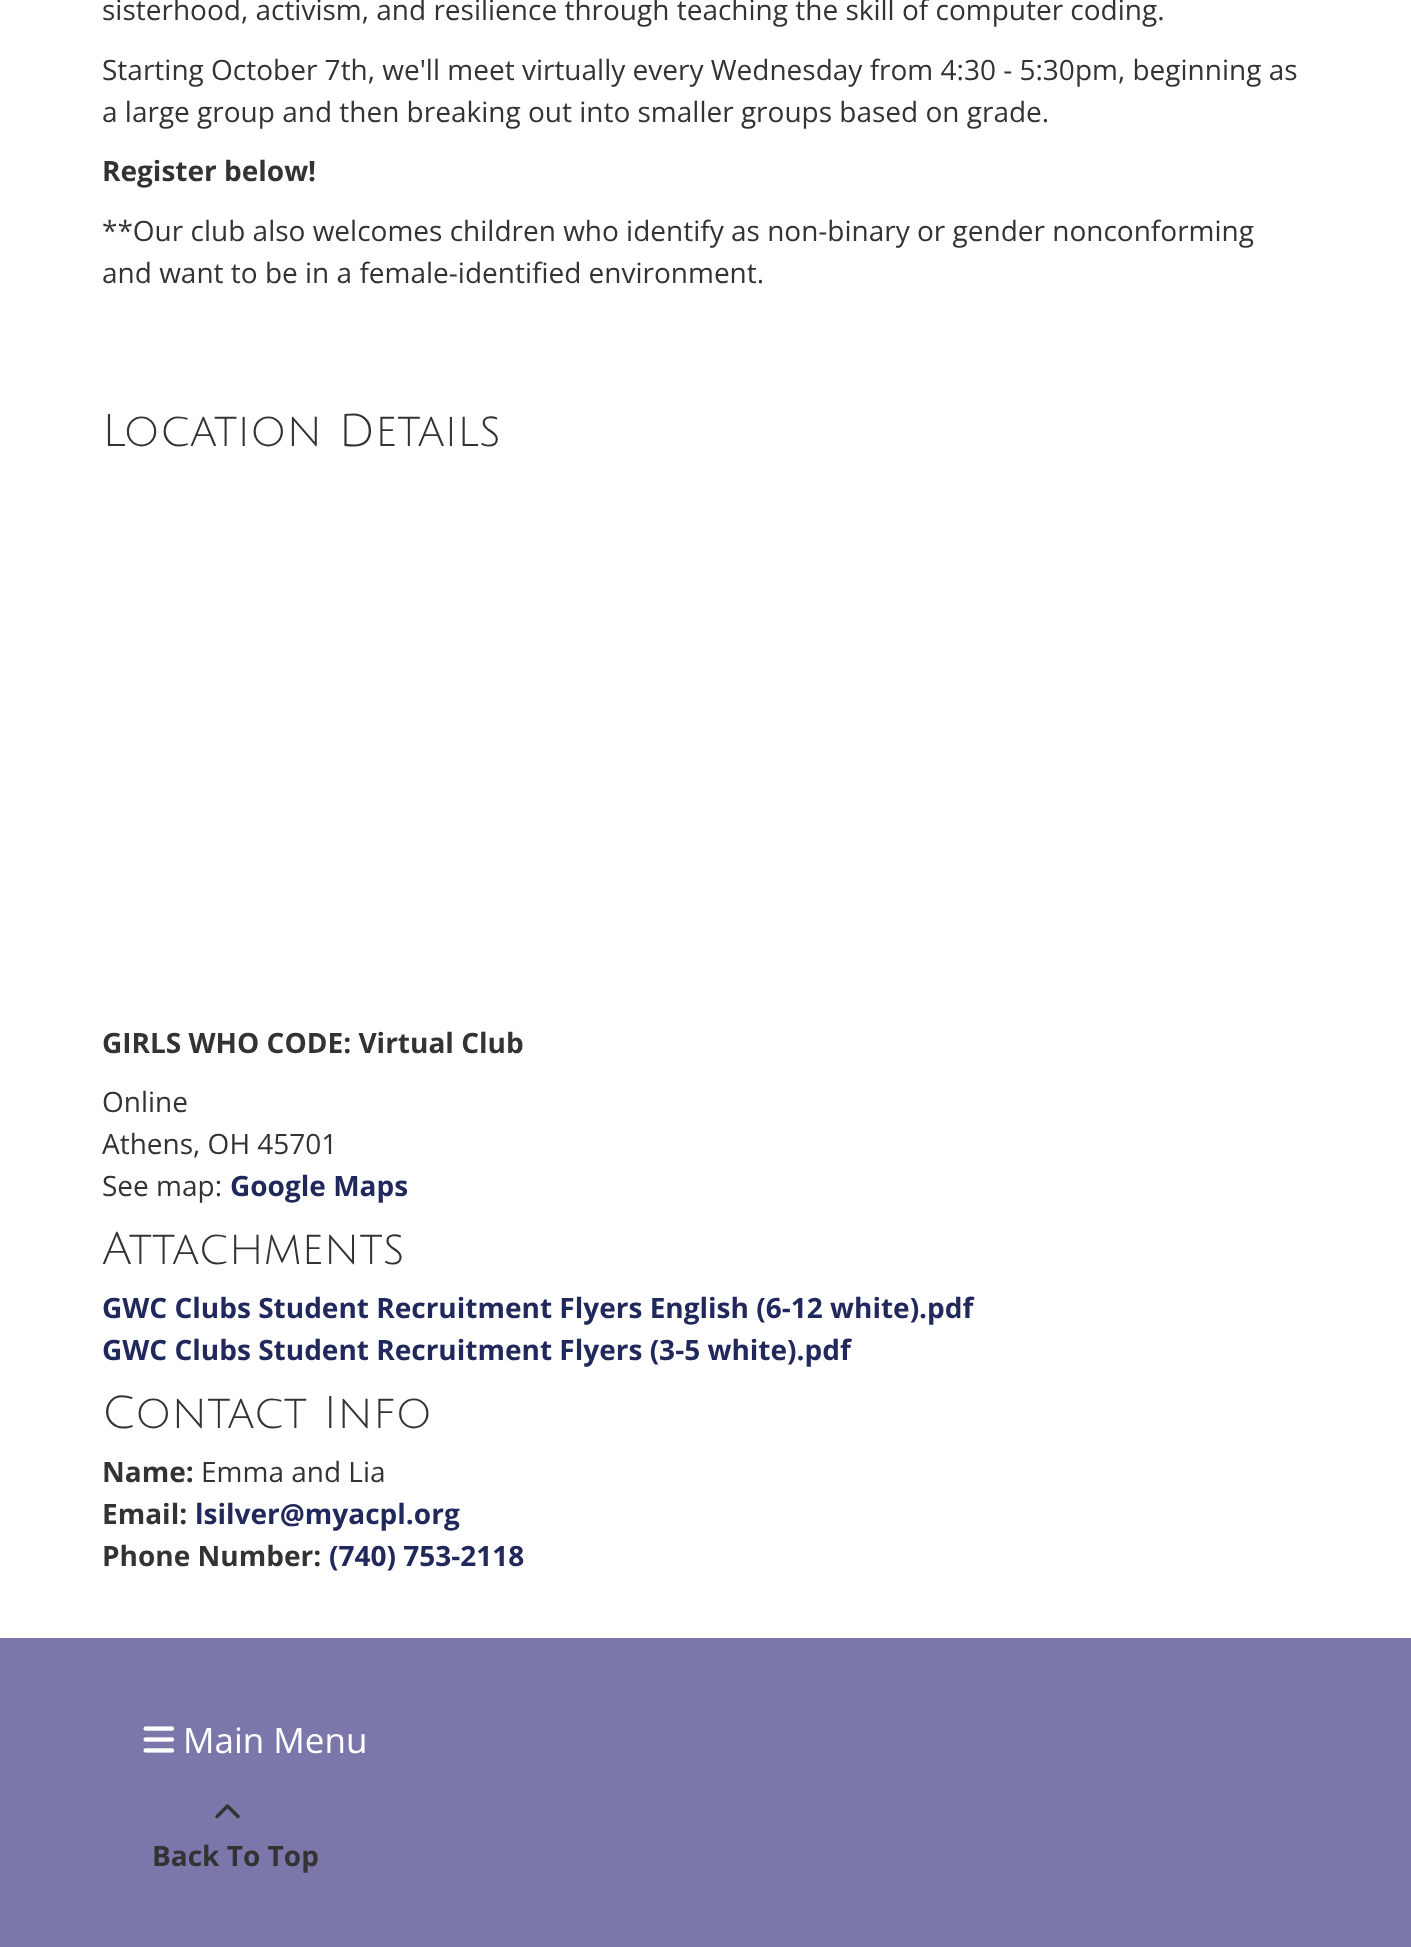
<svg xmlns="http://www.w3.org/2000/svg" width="1411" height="1947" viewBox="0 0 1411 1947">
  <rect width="100%" height="100%" fill="#fff"/>
  <path d="M0 1638h1411v309H0z" fill="#7c77aa"/>
  <image x="143" y="1726" width="32" height="27" href="img/1.png"/>
  <image x="215" y="1804" width="25" height="15" href="img/2.png"/>
  <g font-family="Open Sans" font-size="28" fill="#333">
    <text x="102" y="20">sisterhood, activism, and resilience through teaching the skill of computer coding.</text>
    <text x="102" y="80">Starting October 7th, we'll meet virtually every Wednesday from 4:30 - 5:30pm, beginning as</text>
    <text x="102" y="122">a large group and then breaking out into smaller groups based on grade.</text>
  </g>
  <text x="102" y="181" font-family="Open Sans" font-size="28" font-weight="bold" fill="#333">Register below!</text>
  <g font-family="Open Sans" font-size="28" fill="#333">
    <text x="102" y="241">**Our club also welcomes children who identify as non-binary or gender nonconforming</text>
    <text x="102" y="283">and want to be in a female-identified environment.</text>
  </g>
  <text x="102" y="446" font-family="Julius Sans One" font-size="44.9" fill="#333">Location Details</text>
  <text x="102" y="1053" font-family="Open Sans" font-size="28" font-weight="bold" fill="#333">GIRLS WHO CODE: Virtual Club</text>
  <g font-family="Open Sans" font-size="28" fill="#333">
    <text x="102" y="1112">Online</text>
    <text x="102" y="1154">Athens, OH 45701</text>
    <text x="102" y="1196">See map:</text>
  </g>
  <text x="230" y="1196" font-family="Open Sans" font-size="28" font-weight="bold" fill="#21295c">Google Maps</text>
  <text x="102" y="1264" font-family="Julius Sans One" font-size="44.9" fill="#333">Attachments</text>
  <g font-family="Open Sans" font-size="28" font-weight="bold" fill="#21295c">
    <text x="102" y="1318">GWC Clubs Student Recruitment Flyers English (6-12 white).pdf</text>
    <text x="102" y="1360">GWC Clubs Student Recruitment Flyers (3-5 white).pdf</text>
  </g>
  <text x="102" y="1428" font-family="Julius Sans One" font-size="44.9" fill="#333">Contact Info</text>
  <text x="102" y="1482" font-family="Open Sans" font-size="28" font-weight="bold" fill="#333">Name:</text>
  <text x="201" y="1482" font-family="Open Sans" font-size="28" fill="#333">Emma and Lia</text>
  <text x="102" y="1524" font-family="Open Sans" font-size="28" font-weight="bold" fill="#333">Email:</text>
  <text x="195" y="1524" font-family="Open Sans" font-size="28" font-weight="bold" fill="#21295c">lsilver@myacpl.org</text>
  <text x="102" y="1566" font-family="Open Sans" font-size="28" font-weight="bold" fill="#333">Phone Number:</text>
  <text x="329" y="1566" font-family="Open Sans" font-size="28" font-weight="bold" fill="#21295c">(740) 753-2118</text>
  <text x="183" y="1753" font-family="Open Sans" font-size="35" fill="#fff">Main Menu</text>
  <text x="152" y="1866" font-family="Open Sans" font-size="28" font-weight="bold" fill="#333">Back To Top</text>
</svg>
